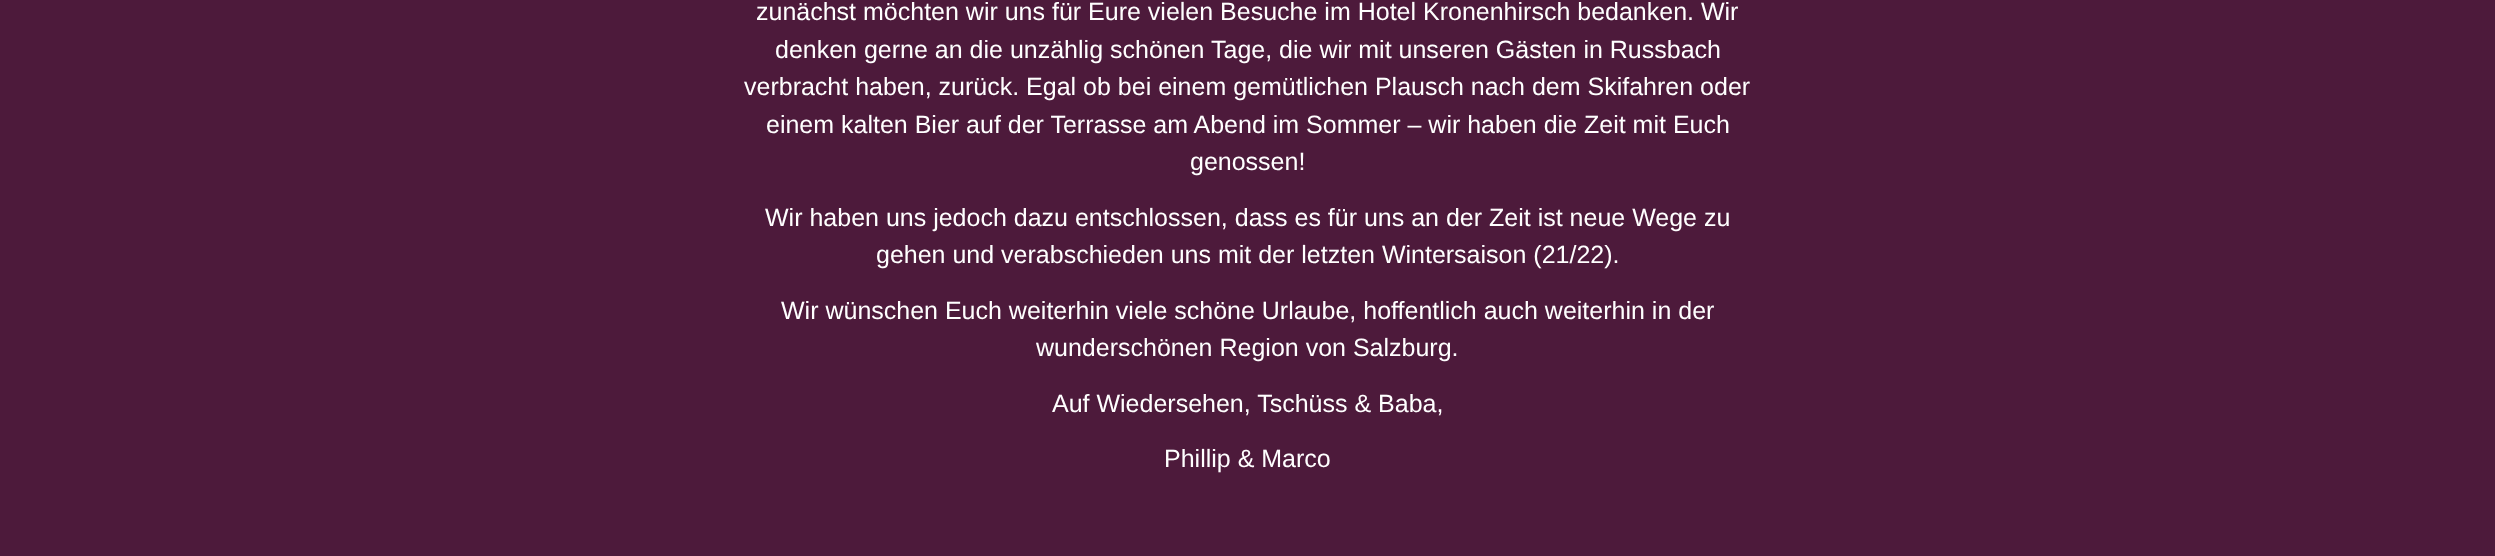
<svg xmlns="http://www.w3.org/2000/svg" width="2495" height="556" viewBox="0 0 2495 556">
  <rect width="100%" height="100%" fill="#4d1a3b"/>
  <g font-family="Liberation Sans" font-size="25" fill="#fff">
    <text x="756" y="20">zunächst möchten wir uns für Eure vielen Besuche im Hotel Kronenhirsch bedanken. Wir</text>
    <text x="775" y="58">denken gerne an die unzählig schönen Tage, die wir mit unseren Gästen in Russbach</text>
    <text x="744" y="95">verbracht haben, zurück. Egal ob bei einem gemütlichen Plausch nach dem Skifahren oder</text>
    <text x="766" y="133">einem kalten Bier auf der Terrasse am Abend im Sommer – wir haben die Zeit mit Euch</text>
    <text x="1190" y="170">genossen!</text>
    <text x="765" y="226">Wir haben uns jedoch dazu entschlossen, dass es für uns an der Zeit ist neue Wege zu</text>
    <text x="876" y="263">gehen und verabschieden uns mit der letzten Wintersaison (21/22).</text>
    <text x="781" y="319">Wir wünschen Euch weiterhin viele schöne Urlaube, hoffentlich auch weiterhin in der</text>
    <text x="1036" y="356">wunderschönen Region von Salzburg.</text>
    <text x="1052" y="412">Auf Wiedersehen, Tschüss &amp; Baba,</text>
    <text x="1164" y="467">Phillip &amp; Marco</text>
  </g>
</svg>
